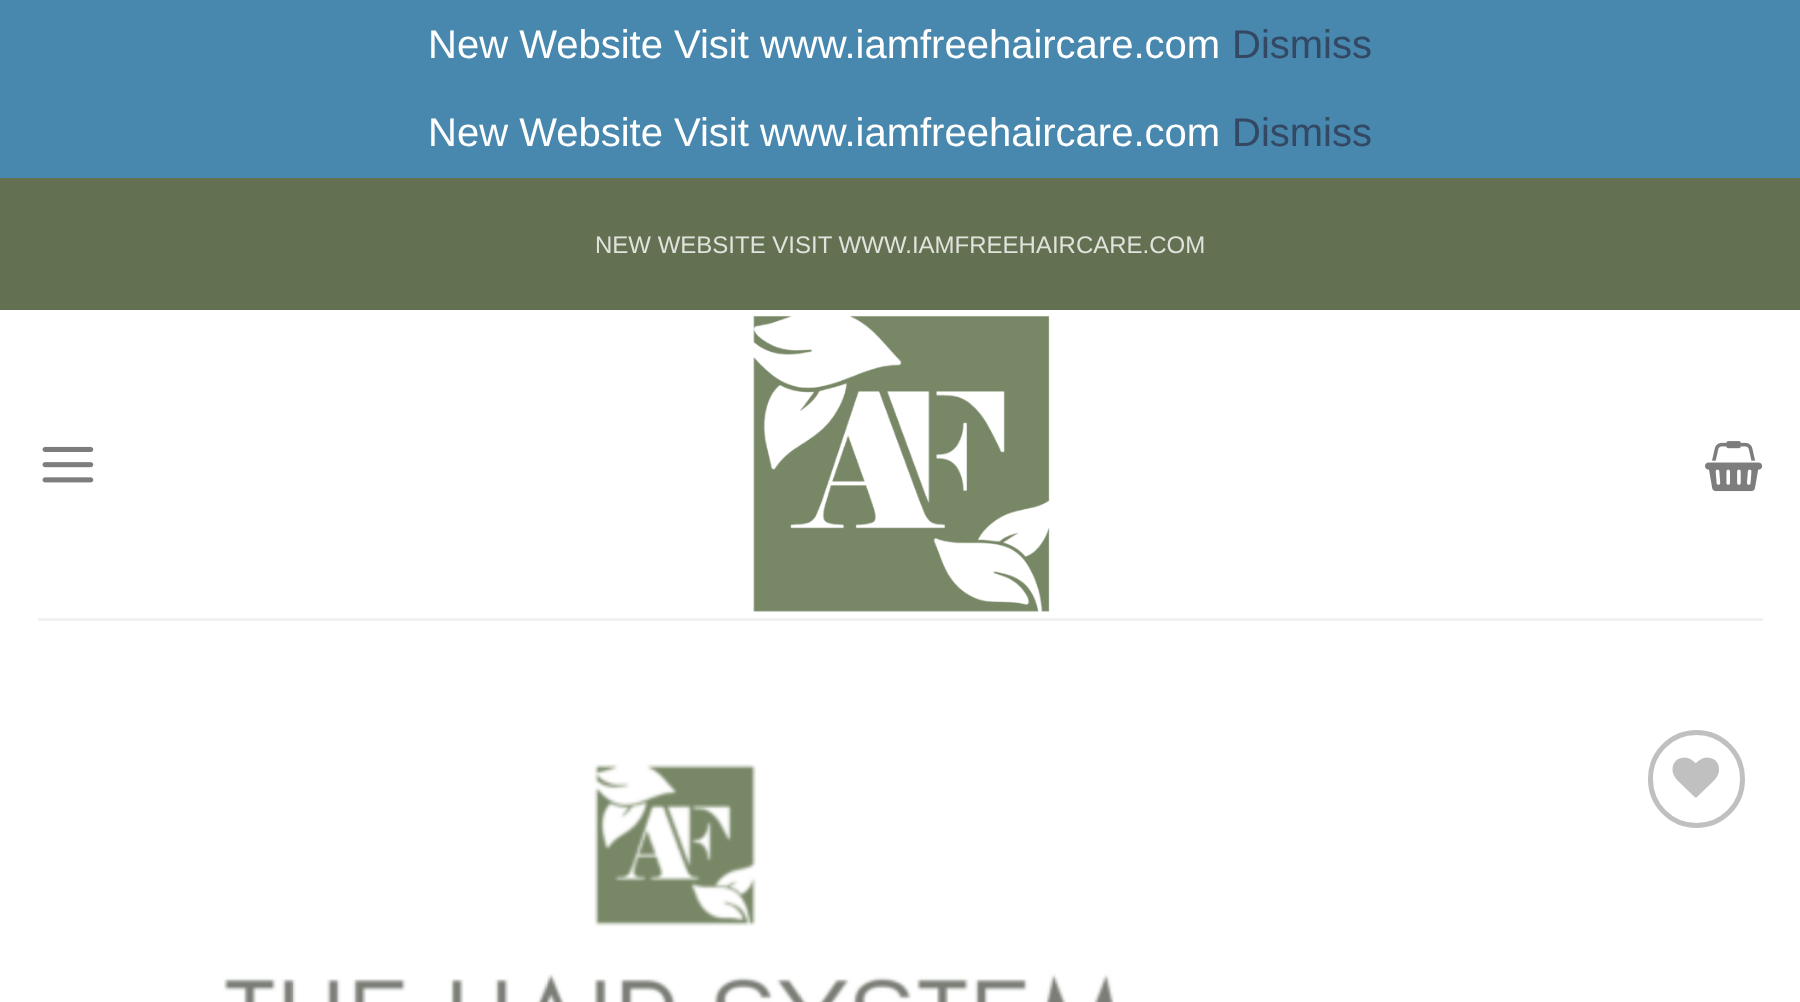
<svg xmlns="http://www.w3.org/2000/svg" width="1800" height="1002" viewBox="0 0 1800 1002">
  <rect width="100%" height="100%" fill="#fff"/>
  <path d="M0 0h1800v178H0z" fill="#4887ae"/>
  <path d="M0 178h1800v132H0z" fill="#637051"/>
  <image x="42" y="446" width="52" height="37" href="img/1.png"/>
  <image x="753" y="315" width="297" height="297" href="img/2.png"/>
  <image x="1705" y="441" width="58" height="51" href="img/3.png"/>
  <path d="M38 618h1725v3H38z" fill="#f1f1f1"/>
  <image x="223" y="764" width="891" height="238" href="img/4.png"/>
  <rect x="1650.5" y="732.5" width="92" height="93" rx="46" fill="none" stroke="#c0c0c0" stroke-width="5"/>
  <image x="1672" y="757" width="47" height="41" href="img/5.png"/>
  <text x="428" y="58" font-family="Liberation Sans" font-size="40" fill="#fff">New Website Visit www.iamfreehaircare.com</text>
  <text x="1232" y="58" font-family="Liberation Sans" font-size="40" fill="#334862">Dismiss</text>
  <text x="428" y="146" font-family="Liberation Sans" font-size="40" fill="#fff">New Website Visit www.iamfreehaircare.com</text>
  <text x="1232" y="146" font-family="Liberation Sans" font-size="40" fill="#334862">Dismiss</text>
  <text x="595" y="253" font-family="Liberation Sans" font-size="24" fill="#e0e2dc">NEW WEBSITE VISIT WWW.IAMFREEHAIRCARE.COM</text>
</svg>
